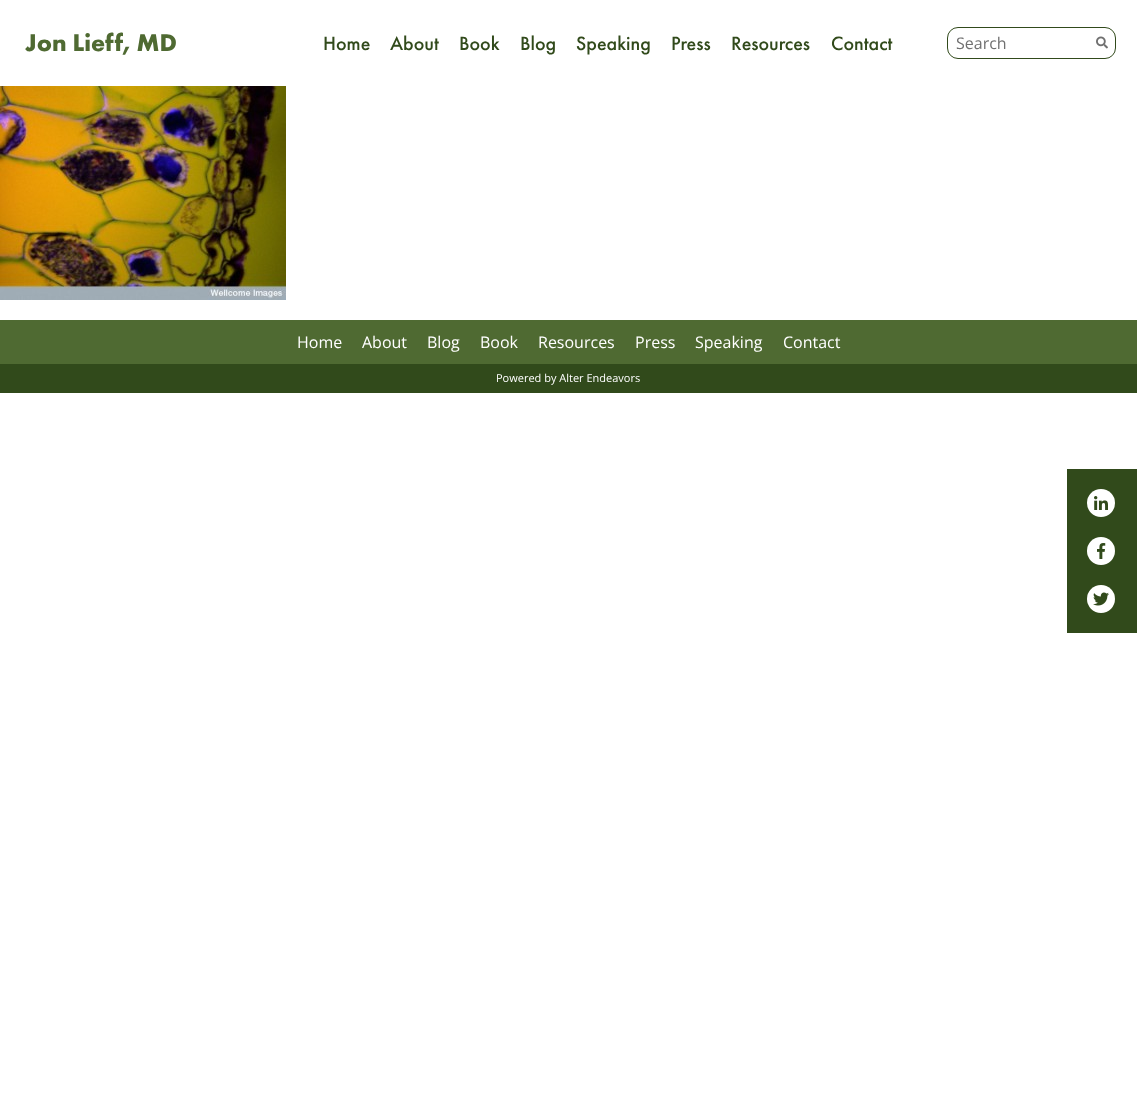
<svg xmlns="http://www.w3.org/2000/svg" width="1137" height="1107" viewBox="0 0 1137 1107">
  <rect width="100%" height="100%" fill="#fff"/>
  <rect x="947.5" y="27.5" width="168" height="31" rx="10.5" fill="none" stroke="#314a1b"/>
  <image x="1096" y="36" width="12" height="13" href="img/1.png"/>
  <image x="0" y="86" width="286" height="214" href="img/2.png"/>
  <path d="M0 320h1137v44H0z" fill="#4f6a32"/>
  <path d="M0 364h1137v29H0z" fill="#314a1b"/>
  <path d="M1067 469h70v164H1067z" fill="#314a1b"/>
  <circle cx="1101" cy="503" r="14" fill="#fff"/>
  <image x="1094" y="496" width="14" height="14" href="img/3.png"/>
  <circle cx="1101" cy="551" r="14" fill="#fff"/>
  <image x="1097" y="543" width="9" height="16" href="img/4.png"/>
  <circle cx="1101" cy="599" r="14" fill="#fff"/>
  <image x="1093" y="592" width="16" height="14" href="img/5.png"/>
  <text x="25" y="51" font-family="Futura PT" font-size="25" font-weight="bold" fill="#4f6a32">Jon Lieff, MD</text>
  <g font-family="Futura PT" font-size="20" font-weight="500" fill="#314a1b">
    <text x="323" y="50">Home</text>
    <text x="390" y="50">About</text>
    <text x="459" y="50">Book</text>
    <text x="520" y="50">Blog</text>
    <text x="576" y="50">Speaking</text>
    <text x="671" y="50">Press</text>
    <text x="731" y="50">Resources</text>
    <text x="831" y="50">Contact</text>
  </g>
  <text x="956" y="49" font-family="Open Sans" font-size="16" fill="#707070">Search</text>
  <g font-family="Open Sans" font-size="16" fill="#fff">
    <text x="297" y="348">Home</text>
    <text x="362" y="348">About</text>
    <text x="427" y="348">Blog</text>
    <text x="480" y="348">Book</text>
    <text x="538" y="348">Resources</text>
    <text x="635" y="348">Press</text>
    <text x="695" y="348">Speaking</text>
    <text x="783" y="348">Contact</text>
  </g>
  <text x="496" y="382" font-family="Open Sans" font-size="11" fill="#fff">Powered by Alter Endeavors</text>
</svg>
